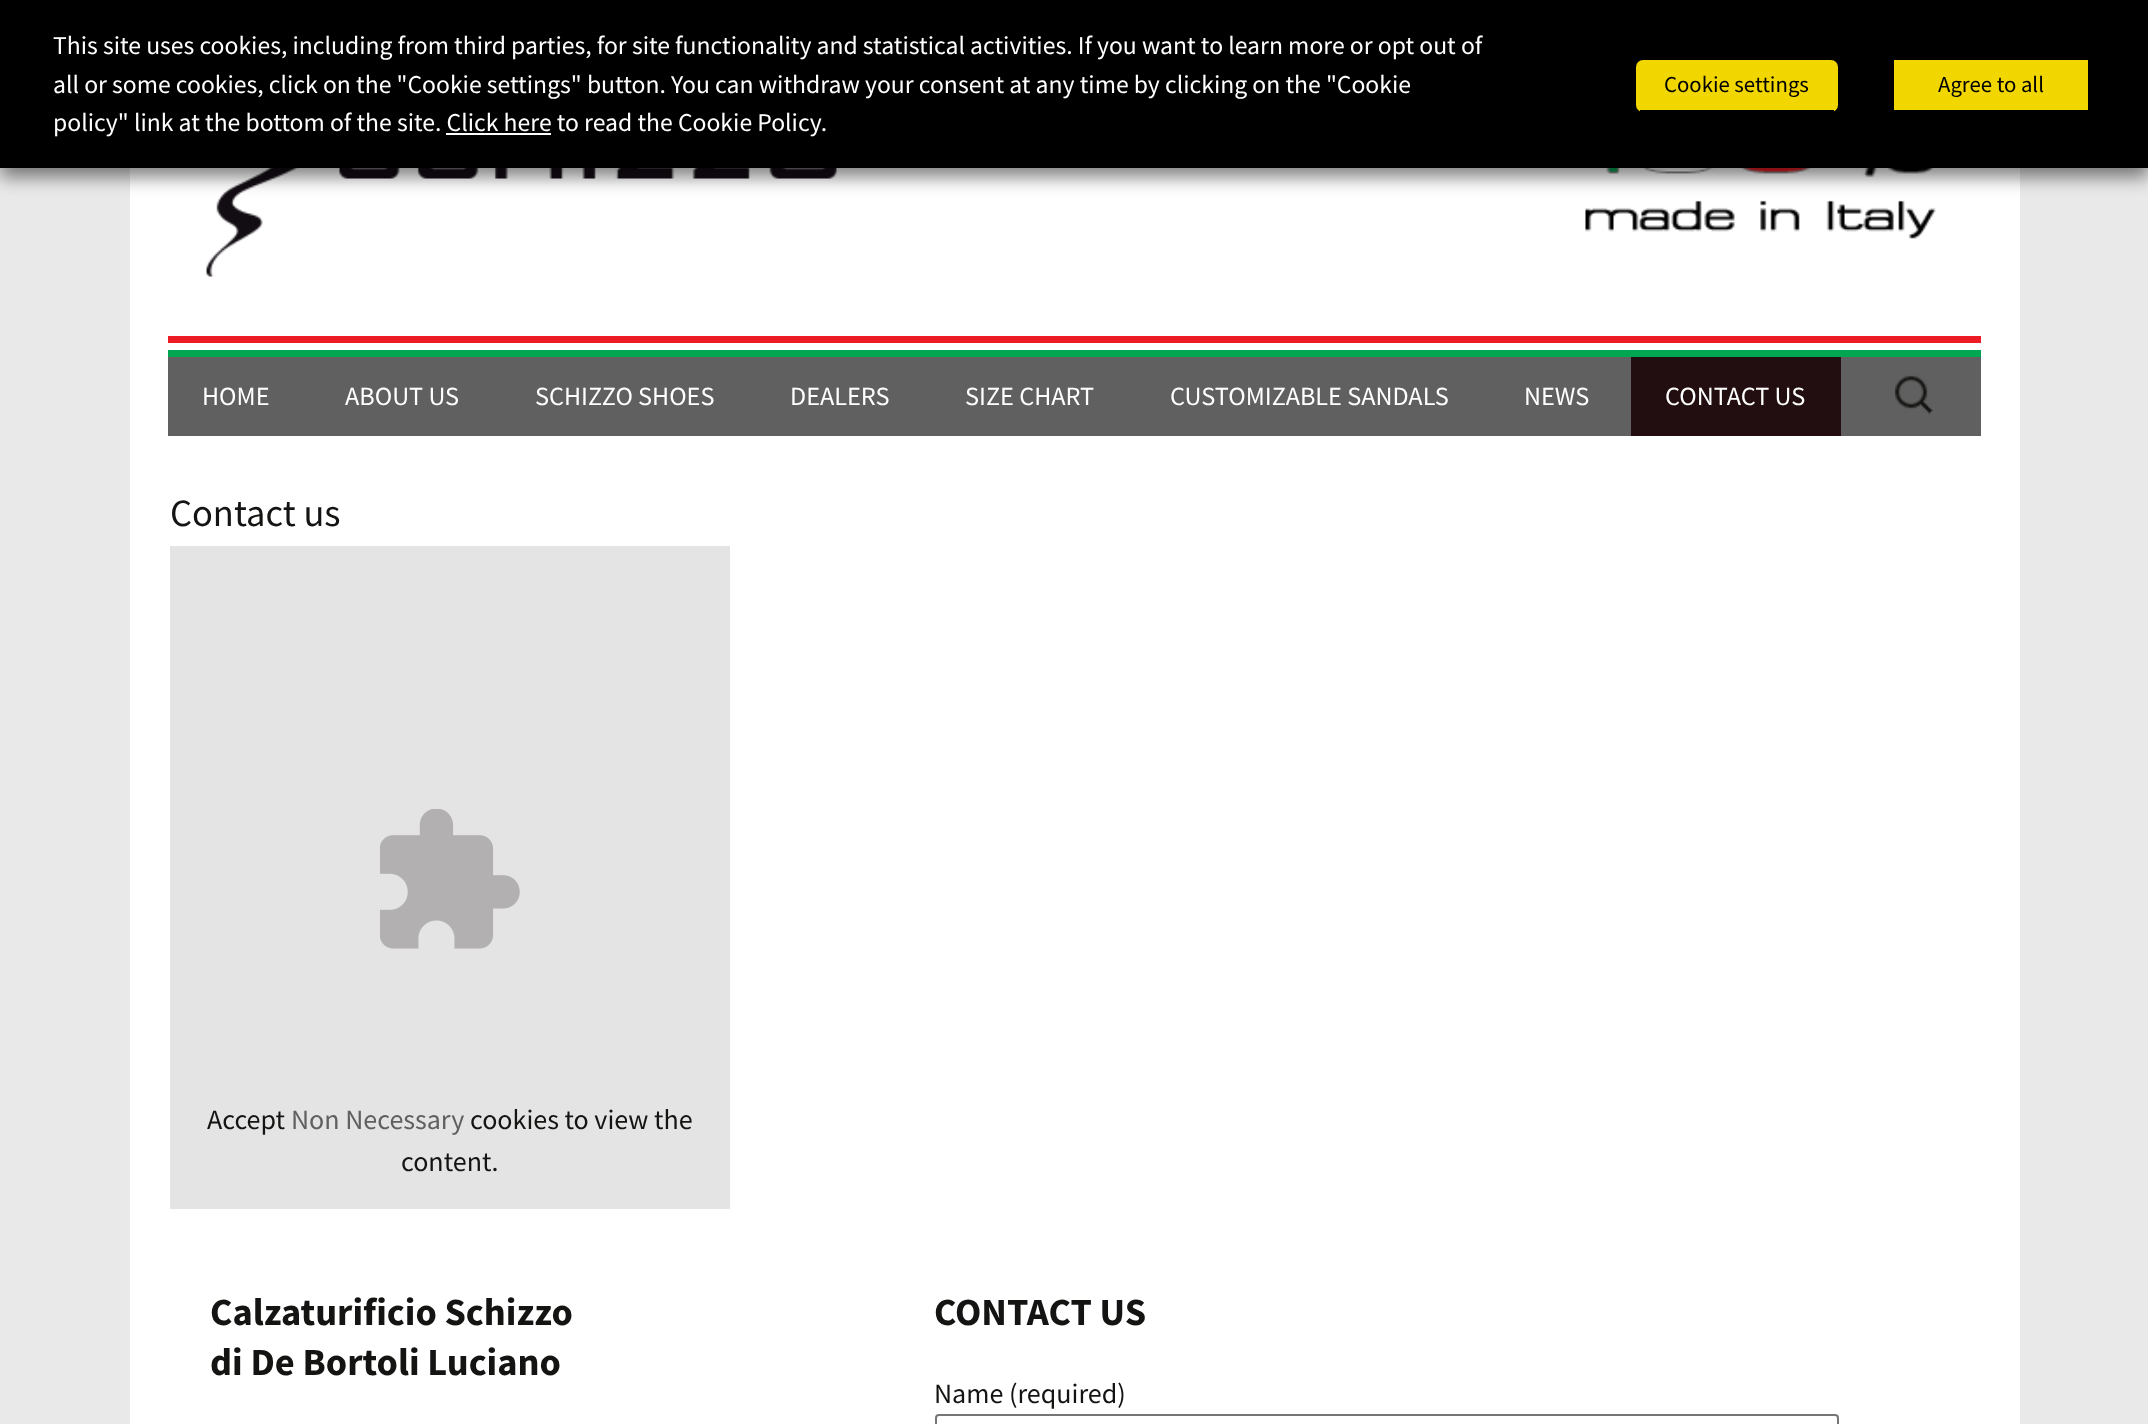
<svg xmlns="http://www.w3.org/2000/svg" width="2148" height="1424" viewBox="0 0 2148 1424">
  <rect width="100%" height="100%" fill="#e9e9e9"/>
  <path d="M130 168h1890v1256H130z" fill="#fff"/>
  <image x="206" y="168" width="631" height="109" href="img/1.png"/>
  <image x="1585" y="168" width="351" height="71" href="img/2.png"/>
  <path d="M0 9h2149v168H0z" fill="#00000080" filter="blur(9px)"/>
  <path d="M0 0h2148v168H0z" fill="#000"/>
  <path d="M446 133h105v2H446z" fill="#fff"/>
  <rect x="1636" y="60" width="202" height="52" rx="7" fill="#f1d600"/>
  <path d="M1640 110h194v2H1640z" fill="#000"/>
  <path d="M1894 60h194v50H1894z" fill="#f1d600"/>
  <path d="M168 336h1813v7H168z" fill="#ed1c24"/>
  <path d="M168 357h1813v79H168z" fill="#606060"/>
  <path d="M168 350h1813v7H168z" fill="#00a651"/>
  <path d="M1631 357h210v79H1631z" fill="#220e10"/>
  <image x="1895" y="375" width="38" height="39" href="img/3.png"/>
  <path d="M170 546h560v663H170z" fill="#e5e4e4"/>
  <image x="380" y="809" width="140" height="140" href="img/4.png"/>
  <rect x="936" y="1415" width="902" height="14" rx="3" fill="none" stroke="#767676" stroke-width="2"/>
  <g font-family="Source Sans Pro" font-size="25.67" fill="#fff">
    <text x="53" y="54">This site uses cookies, including from third parties, for site functionality and statistical activities. If you want to learn more or opt out of</text>
    <text x="53" y="93">all or some cookies, click on the "Cookie settings" button. You can withdraw your consent at any time by clicking on the "Cookie</text>
    <text x="53" y="131">policy" link at the bottom of the site. Click here to read the Cookie Policy.</text>
  </g>
  <g font-family="Source Sans Pro" font-size="22.75" fill="#000">
    <text x="1664" y="92">Cookie settings</text>
    <text x="1938" y="92">Agree to all</text>
  </g>
  <g font-family="Source Sans Pro" font-size="26.25" fill="#fff">
    <text x="202" y="405">HOME</text>
    <text x="345" y="405">ABOUT US</text>
    <text x="535" y="405">SCHIZZO SHOES</text>
    <text x="790" y="405">DEALERS</text>
    <text x="965" y="405">SIZE CHART</text>
    <text x="1170" y="405">CUSTOMIZABLE SANDALS</text>
    <text x="1524" y="405">NEWS</text>
    <text x="1665" y="405">CONTACT US</text>
  </g>
  <text x="170" y="526" font-family="Source Sans Pro" font-size="38.5" fill="#141412">Contact us</text>
  <text x="207" y="1129" font-family="Source Sans Pro" font-size="28" fill="#141412">Accept</text>
  <text x="291" y="1129" font-family="Source Sans Pro" font-size="28" fill="#606060">Non Necessary</text>
  <g font-family="Source Sans Pro" font-size="28" fill="#141412">
    <text x="470" y="1129">cookies to view the</text>
    <text x="401" y="1171">content.</text>
  </g>
  <g font-family="Source Sans Pro" font-size="38.5" font-weight="bold" fill="#141412">
    <text x="210" y="1325">Calzaturificio Schizzo</text>
    <text x="210" y="1375">di De Bortoli Luciano</text>
    <text x="934" y="1325">CONTACT US</text>
  </g>
  <text x="934" y="1403" font-family="Source Sans Pro" font-size="28" fill="#141412">Name (required)</text>
</svg>
